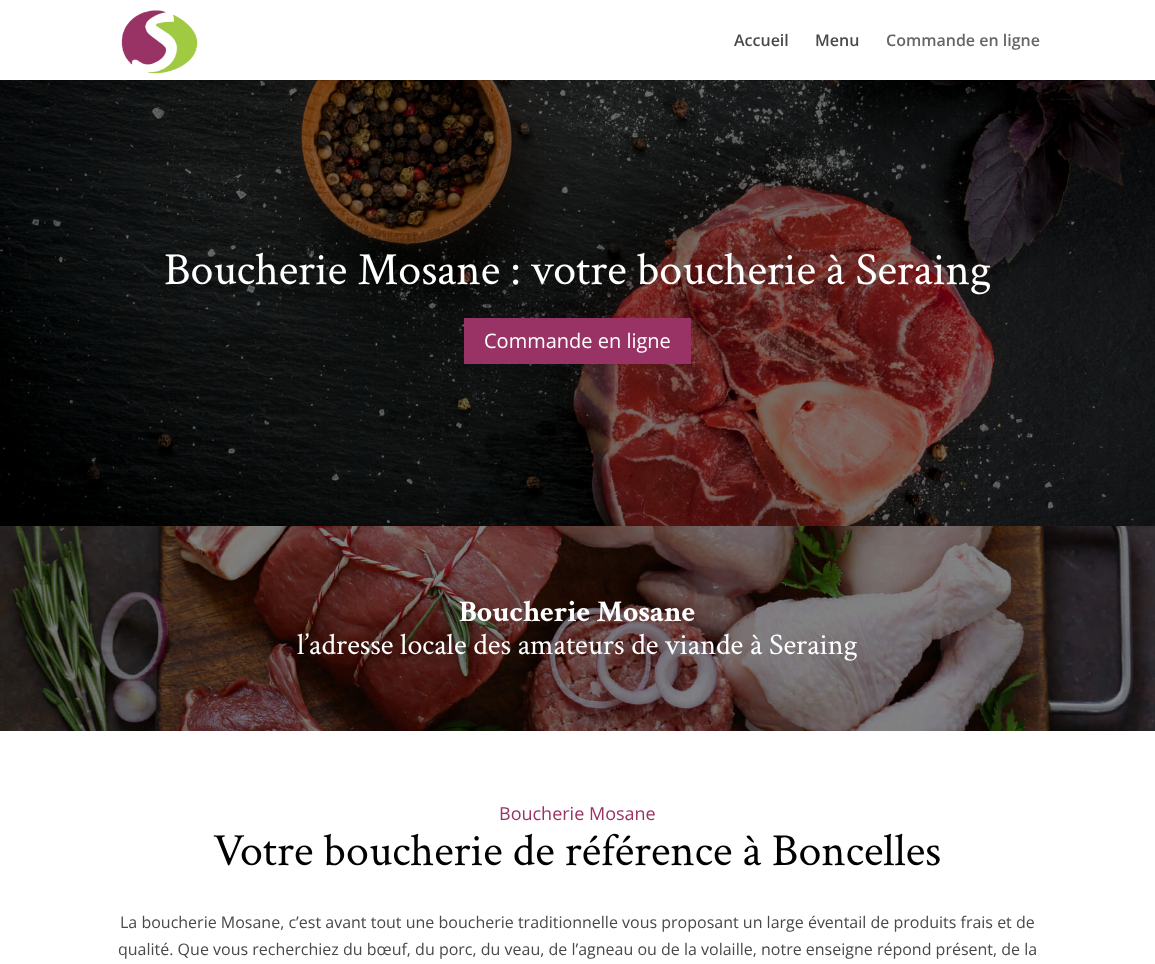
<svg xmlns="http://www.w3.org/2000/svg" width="1155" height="964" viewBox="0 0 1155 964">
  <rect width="100%" height="100%" fill="#fff"/>
  <image x="0" y="80" width="1155" height="446" href="img/2.png"/>
  <path d="M27 80h1128v1H27z" fill="#0000001a"/>
  <image x="121" y="10" width="77" height="64" href="img/1.png"/>
  <path d="M464 318h227v46H464z" fill="#993365"/>
  <image x="0" y="526" width="1155" height="205" href="img/3.png"/>
  <g font-family="Open Sans" font-size="16" font-weight="600" fill="#494949">
    <text x="734" y="46">Accueil</text>
    <text x="815" y="46">Menu</text>
  </g>
  <text x="886" y="46" font-family="Open Sans" font-size="16" font-weight="600" fill="#666">Commande en ligne</text>
  <text x="164" y="284" font-family="Crimson Text" font-size="46" fill="#fff">Boucherie Mosane : votre boucherie à Seraing</text>
  <text x="484" y="348" font-family="Open Sans" font-size="20" fill="#fff">Commande en ligne</text>
  <text x="459" y="621" font-family="Crimson Text" font-size="30" font-weight="bold" fill="#fff">Boucherie Mosane</text>
  <text x="297" y="654" font-family="Crimson Text" font-size="30" fill="#fff">l’adresse locale des amateurs de viande à Seraing</text>
  <text x="499" y="820" font-family="Open Sans" font-size="18" fill="#993365">Boucherie Mosane</text>
  <text x="213" y="865" font-family="Crimson Text" font-size="46" fill="#000">Votre boucherie de référence à Boncelles</text>
  <g font-family="Open Sans" font-size="16" fill="#494949">
    <text x="120" y="928">La boucherie Mosane, c’est avant tout une boucherie traditionnelle vous proposant un large éventail de produits frais et de</text>
    <text x="118" y="955">qualité. Que vous recherchiez du bœuf, du porc, du veau, de l’agneau ou de la volaille, notre enseigne répond présent, de la</text>
  </g>
</svg>
